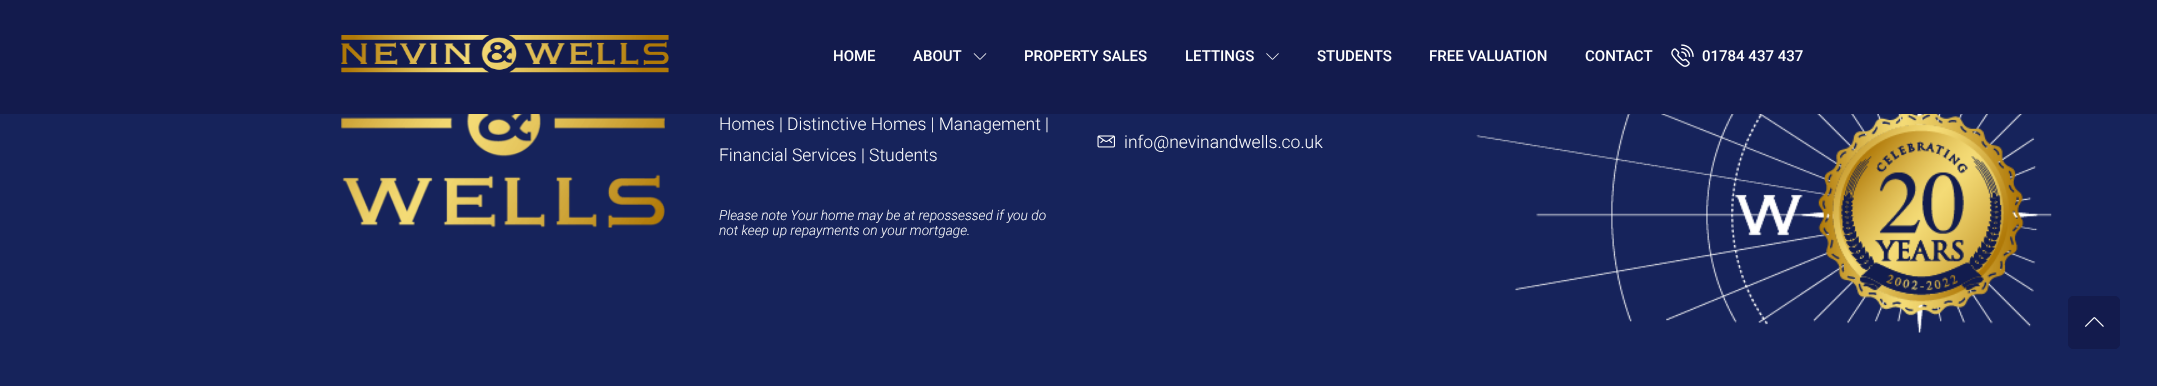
<svg xmlns="http://www.w3.org/2000/svg" width="2157" height="386" viewBox="0 0 2157 386">
  <rect width="100%" height="100%" fill="#16235b"/>
  <path d="M0 0h2157v114H0z" fill="#131b4d"/>
  <image x="341" y="35" width="328" height="38" href="img/1.png"/>
  <image x="973" y="53" width="14" height="7" href="img/2.png"/>
  <image x="1266" y="53" width="13" height="7" href="img/3.png"/>
  <image x="1671" y="44" width="23" height="23" href="img/4.png"/>
  <image x="341" y="114" width="324" height="114" href="img/5.png"/>
  <image x="1097" y="135" width="18" height="13" href="img/6.png"/>
  <image x="1476" y="114" width="576" height="219" href="img/7.png"/>
  <rect x="2068.5" y="296.5" width="51" height="52" rx="4.5" fill="#131b4d" stroke="#131b4d"/>
  <image x="2085" y="317" width="19" height="10" href="img/8.png"/>
  <g font-family="Roboto" font-size="15" font-weight="500" fill="#fff">
    <text x="833" y="61">HOME</text>
    <text x="913" y="61">ABOUT</text>
    <text x="1024" y="61">PROPERTY SALES</text>
    <text x="1185" y="61">LETTINGS</text>
    <text x="1317" y="61">STUDENTS</text>
    <text x="1429" y="61">FREE VALUATION</text>
    <text x="1585" y="61">CONTACT</text>
    <text x="1702" y="61">01784 437 437</text>
  </g>
  <g font-family="Roboto" font-size="17.5" font-weight="300" fill="#fff">
    <text x="719" y="130">Homes | Distinctive Homes | Management |</text>
    <text x="719" y="161">Financial Services | Students</text>
  </g>
  <g font-family="Roboto" font-size="13.75" font-weight="300" font-style="italic" fill="#fff">
    <text x="719" y="220">Please note Your home may be at repossessed if you do</text>
    <text x="719" y="235">not keep up repayments on your mortgage.</text>
  </g>
  <text x="1124" y="148" font-family="Roboto" font-size="17.5" font-weight="300" fill="#fff">info@nevinandwells.co.uk</text>
</svg>
